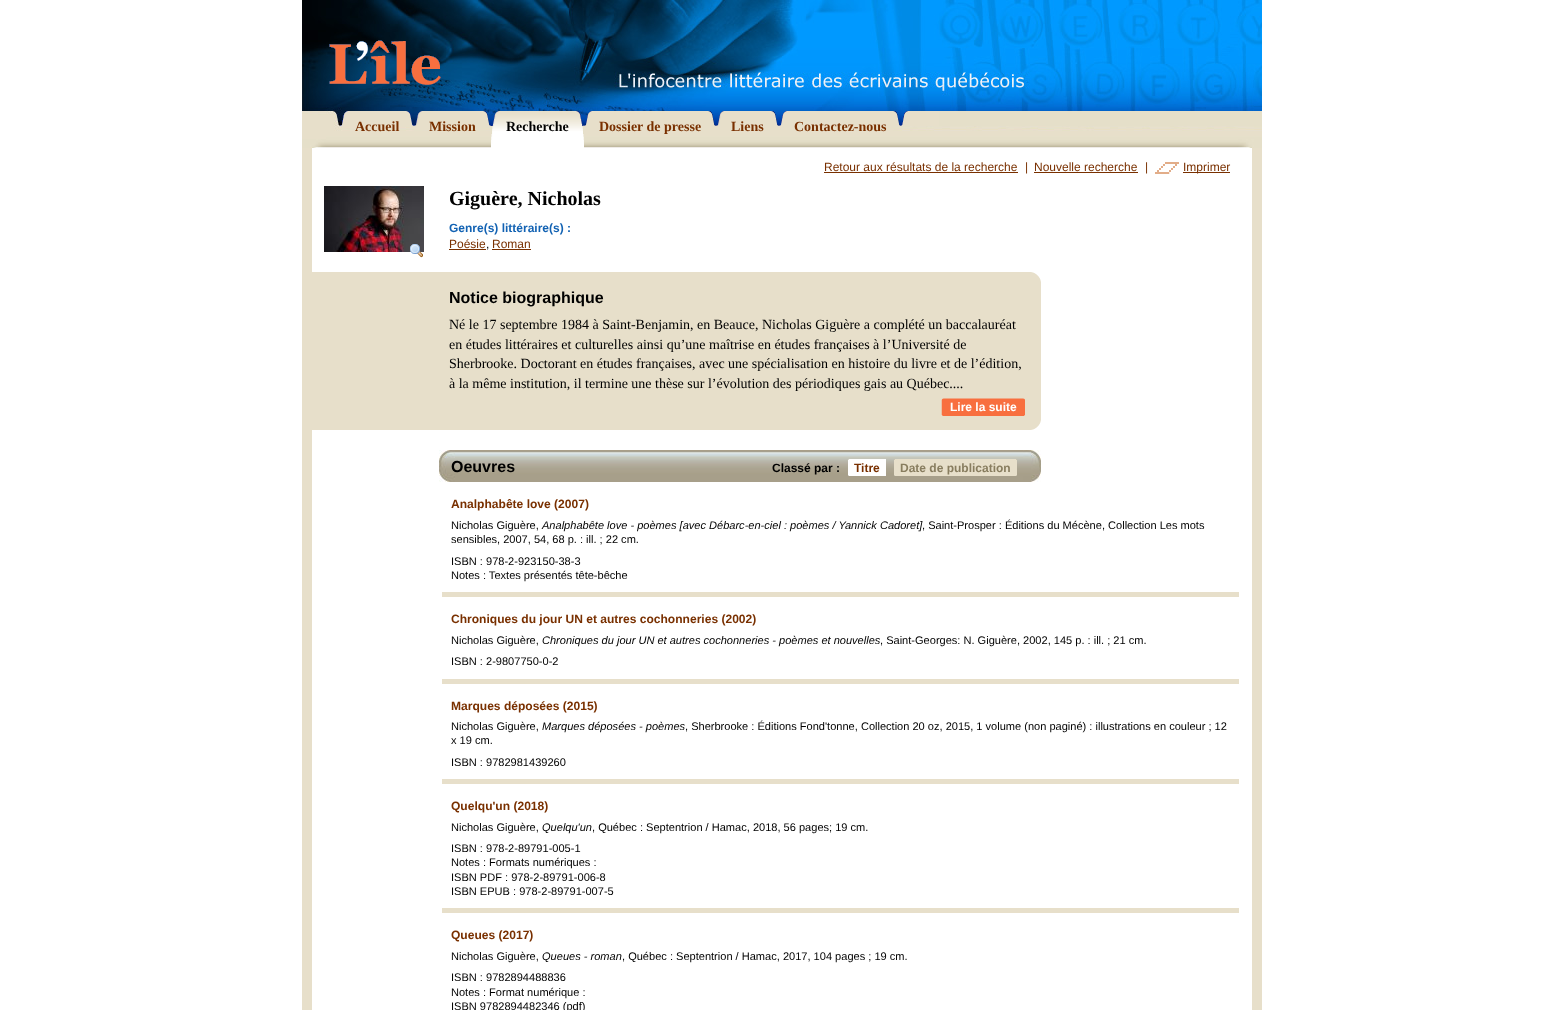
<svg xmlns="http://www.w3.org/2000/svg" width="1564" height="1010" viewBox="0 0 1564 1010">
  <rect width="100%" height="100%" fill="#fff"/>
  <image x="302" y="0" width="960" height="107" href="img/1.png"/>
  <image x="329" y="40" width="112" height="45" href="img/2.png"/>
  <image x="302" y="107" width="960" height="41" href="img/3.png"/>
  <image x="340" y="111" width="66" height="16" href="img/4.png"/>
  <image x="406" y="111" width="8" height="15" href="img/5.png"/>
  <image x="414" y="111" width="69" height="19" href="img/6.png"/>
  <image x="483" y="111" width="8" height="16" href="img/7.png"/>
  <image x="578" y="111" width="6" height="15" href="img/10.png"/>
  <image x="576" y="111" width="8" height="37" href="img/8.png"/>
  <image x="491" y="111" width="85" height="37" href="img/9.png"/>
  <image x="584" y="111" width="124" height="20" href="img/11.png"/>
  <image x="708" y="111" width="8" height="20" href="img/12.png"/>
  <image x="716" y="111" width="55" height="20" href="img/13.png"/>
  <image x="771" y="111" width="8" height="20" href="img/14.png"/>
  <image x="779" y="111" width="114" height="20" href="img/15.png"/>
  <image x="893" y="111" width="8" height="15" href="img/16.png"/>
  <image x="901" y="111" width="361" height="15" href="img/17.png"/>
  <path d="M1252 148h10v862H1252z" fill="#e7dfca"/>
  <path d="M302 148h10v862H302z" fill="#e7dfca"/>
  <path d="M824 172h194v1H824z" fill="#793000"/>
  <path d="M1034 172h104v1H1034z" fill="#793000"/>
  <image x="1155" y="162" width="24" height="12" href="img/18.png"/>
  <path d="M1183 172h47v1H1183z" fill="#793000"/>
  <image x="324" y="186" width="100" height="66" href="img/19.png"/>
  <image x="410" y="244" width="13" height="14" href="img/20.png"/>
  <path d="M449 249h37v1H449z" fill="#793000"/>
  <path d="M492 249h39v1H492z" fill="#793000"/>
  <path d="M312 272h729v144H312z" fill="#e7dfca"/>
  <image x="1031" y="272" width="10" height="10" href="img/21.png"/>
  <image x="941" y="398" width="84" height="18" href="img/22.png"/>
  <image x="312" y="416" width="729" height="14" href="img/23.png"/>
  <image x="439" y="450" width="602" height="32" href="img/24.png"/>
  <path d="M849 459h37v17H849z" fill="#fff"/>
  <image x="848" y="459" width="1" height="17" href="img/25.png"/>
  <path d="M895 459h121v17H895z" fill="#e7dfca"/>
  <image x="894" y="459" width="1" height="17" href="img/26.png"/>
  <image x="1016" y="459" width="1" height="17" href="img/26.png"/>
  <path d="M442 592h797v5H442z" fill="#e7dfca"/>
  <path d="M442 679h797v5H442z" fill="#e7dfca"/>
  <path d="M442 779h797v5H442z" fill="#e7dfca"/>
  <path d="M442 908h797v5H442z" fill="#e7dfca"/>
  <g font-family="Liberation Serif" font-size="14" font-weight="bold" fill="#793000">
    <text x="355" y="131">Accueil</text>
    <text x="429" y="131">Mission</text>
  </g>
  <text x="506" y="131" font-family="Liberation Serif" font-size="14" font-weight="bold" fill="#000">Recherche</text>
  <g font-family="Liberation Serif" font-size="14" font-weight="bold" fill="#793000">
    <text x="599" y="131">Dossier de presse</text>
    <text x="731" y="131">Liens</text>
    <text x="794" y="131">Contactez-nous</text>
  </g>
  <g font-family="Liberation Sans" font-size="12" fill="#793000">
    <text x="824" y="171">Retour aux résultats de la recherche</text>
    <text x="1025" y="171">|</text>
    <text x="1034" y="171">Nouvelle recherche</text>
    <text x="1145" y="171">|</text>
    <text x="1183" y="171">Imprimer</text>
  </g>
  <text x="449" y="205" font-family="Liberation Serif" font-size="20" font-weight="bold" fill="#000">Giguère, Nicholas</text>
  <text x="449" y="232" font-family="Liberation Sans" font-size="12" font-weight="bold" fill="#1262b3">Genre(s) littéraire(s) :</text>
  <text x="449" y="248" font-family="Liberation Sans" font-size="12" fill="#793000">Poésie</text>
  <text x="486" y="248" font-family="Liberation Sans" font-size="12" fill="#000">,</text>
  <text x="492" y="248" font-family="Liberation Sans" font-size="12" fill="#793000">Roman</text>
  <text x="449" y="303" font-family="Liberation Sans" font-size="16" font-weight="bold" fill="#000">Notice biographique</text>
  <g font-family="Liberation Serif" font-size="14" fill="#000">
    <text x="449" y="329">Né le 17 septembre 1984 à Saint-Benjamin, en Beauce, Nicholas Giguère a complété un baccalauréat</text>
    <text x="449" y="349">en études littéraires et culturelles ainsi qu’une maîtrise en études françaises à l’Université de</text>
    <text x="449" y="368">Sherbrooke. Doctorant en études françaises, avec une spécialisation en histoire du livre et de l’édition,</text>
    <text x="449" y="388">à la même institution, il termine une thèse sur l’évolution des périodiques gais au Québec....</text>
  </g>
  <text x="950" y="411" font-family="Liberation Sans" font-size="12" font-weight="bold" fill="#fff">Lire la suite</text>
  <text x="451" y="472" font-family="Liberation Sans" font-size="16" font-weight="bold" fill="#000">Oeuvres</text>
  <text x="772" y="472" font-family="Liberation Sans" font-size="12" font-weight="bold" fill="#000">Classé par :</text>
  <text x="854" y="472" font-family="Liberation Sans" font-size="12" font-weight="bold" fill="#793000">Titre</text>
  <text x="900" y="472" font-family="Liberation Sans" font-size="12" font-weight="bold" fill="#887d5f">Date de publication</text>
  <text x="451" y="508" font-family="Liberation Sans" font-size="12.05" font-weight="bold" fill="#793000">Analphabête love (2007)</text>
  <text x="451" y="529" font-family="Liberation Sans" font-size="11.05" fill="#000">Nicholas Giguère,</text>
  <text x="542" y="529" font-family="Liberation Sans" font-size="11.05" font-style="italic" fill="#000">Analphabête love - poèmes [avec Débarc-en-ciel : poèmes / Yannick Cadoret]</text>
  <g font-family="Liberation Sans" font-size="11.05" fill="#000">
    <text x="922" y="529">, Saint-Prosper : Éditions du Mécène, Collection Les mots</text>
    <text x="451" y="543">sensibles, 2007, 54, 68 p. : ill. ; 22 cm.</text>
    <text x="451" y="565">ISBN : 978-2-923150-38-3</text>
    <text x="451" y="579">Notes : Textes présentés tête-bêche</text>
  </g>
  <text x="451" y="623" font-family="Liberation Sans" font-size="12.05" font-weight="bold" fill="#793000">Chroniques du jour UN et autres cochonneries (2002)</text>
  <text x="451" y="644" font-family="Liberation Sans" font-size="11.05" fill="#000">Nicholas Giguère,</text>
  <text x="542" y="644" font-family="Liberation Sans" font-size="11.05" font-style="italic" fill="#000">Chroniques du jour UN et autres cochonneries - poèmes et nouvelles</text>
  <g font-family="Liberation Sans" font-size="11.05" fill="#000">
    <text x="880" y="644">, Saint-Georges: N. Giguère, 2002, 145 p. : ill. ; 21 cm.</text>
    <text x="451" y="665">ISBN : 2-9807750-0-2</text>
  </g>
  <text x="451" y="710" font-family="Liberation Sans" font-size="12.05" font-weight="bold" fill="#793000">Marques déposées (2015)</text>
  <text x="451" y="730" font-family="Liberation Sans" font-size="11.05" fill="#000">Nicholas Giguère,</text>
  <text x="542" y="730" font-family="Liberation Sans" font-size="11.05" font-style="italic" fill="#000">Marques déposées - poèmes</text>
  <g font-family="Liberation Sans" font-size="11.05" fill="#000">
    <text x="685" y="730">, Sherbrooke : Éditions Fond'tonne, Collection 20 oz, 2015, 1 volume (non paginé) : illustrations en couleur ; 12</text>
    <text x="451" y="744">x 19 cm.</text>
    <text x="451" y="766">ISBN : 9782981439260</text>
  </g>
  <text x="451" y="810" font-family="Liberation Sans" font-size="12.05" font-weight="bold" fill="#793000">Quelqu'un (2018)</text>
  <text x="451" y="831" font-family="Liberation Sans" font-size="11.05" fill="#000">Nicholas Giguère,</text>
  <text x="542" y="831" font-family="Liberation Sans" font-size="11.05" font-style="italic" fill="#000">Quelqu'un</text>
  <g font-family="Liberation Sans" font-size="11.05" fill="#000">
    <text x="592" y="831">, Québec : Septentrion / Hamac, 2018, 56 pages; 19 cm.</text>
    <text x="451" y="852">ISBN : 978-2-89791-005-1</text>
    <text x="451" y="866">Notes : Formats numériques :</text>
    <text x="451" y="881">ISBN PDF : 978-2-89791-006-8</text>
    <text x="451" y="895">ISBN EPUB : 978-2-89791-007-5</text>
  </g>
  <text x="451" y="939" font-family="Liberation Sans" font-size="12.05" font-weight="bold" fill="#793000">Queues (2017)</text>
  <text x="451" y="960" font-family="Liberation Sans" font-size="11.05" fill="#000">Nicholas Giguère,</text>
  <text x="542" y="960" font-family="Liberation Sans" font-size="11.05" font-style="italic" fill="#000">Queues - roman</text>
  <g font-family="Liberation Sans" font-size="11.05" fill="#000">
    <text x="622" y="960">, Québec : Septentrion / Hamac, 2017, 104 pages ; 19 cm.</text>
    <text x="451" y="981">ISBN : 9782894488836</text>
    <text x="451" y="996">Notes : Format numérique :</text>
    <text x="451" y="1010">ISBN 9782894482346 (pdf)</text>
  </g>
</svg>
